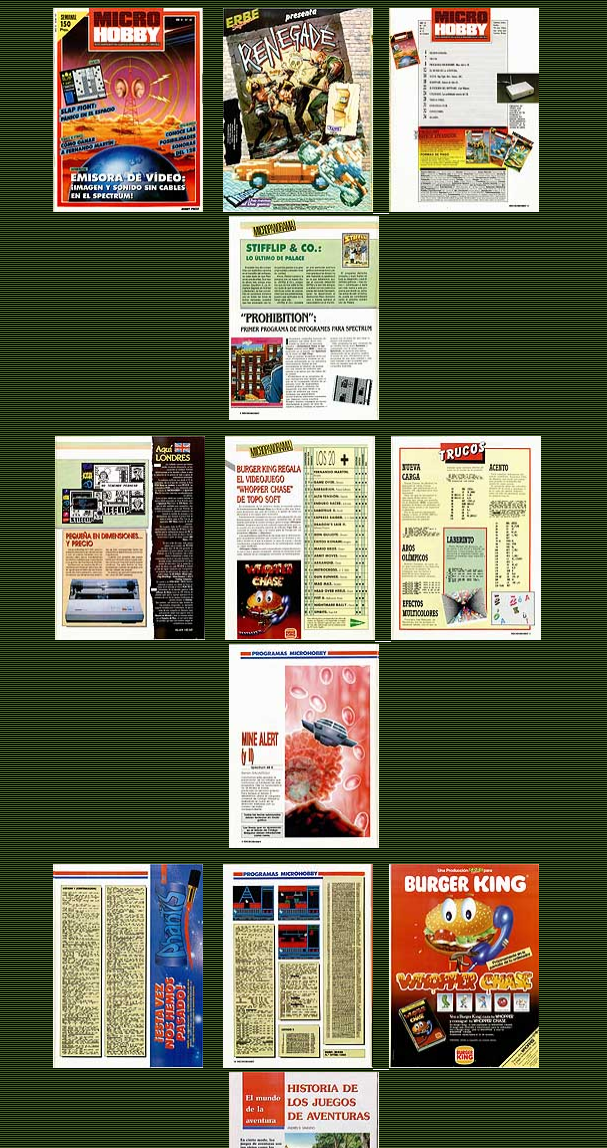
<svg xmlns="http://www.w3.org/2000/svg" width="607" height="1148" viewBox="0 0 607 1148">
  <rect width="100%" height="100%" fill="#fff"/>
  <image x="0" y="0" width="607" height="1148" href="img/1.png"/>
  <image x="53" y="8" width="150" height="204" href="img/2.png"/>
  <image x="223" y="8" width="150" height="204" href="img/3.png"/>
  <image x="389" y="8" width="150" height="204" href="img/4.png"/>
  <path d="M373 213h16v1H373z" fill="#fff"/>
  <image x="229" y="216" width="150" height="204" href="img/5.png"/>
  <image x="55" y="436" width="150" height="204" href="img/6.png"/>
  <image x="225" y="436" width="150" height="204" href="img/7.png"/>
  <image x="391" y="436" width="150" height="204" href="img/8.png"/>
  <path d="M375 641h16v1H375z" fill="#fff"/>
  <image x="229" y="644" width="150" height="204" href="img/9.png"/>
  <image x="53" y="864" width="150" height="204" href="img/10.png"/>
  <image x="223" y="864" width="150" height="204" href="img/11.png"/>
  <image x="389" y="864" width="150" height="204" href="img/12.png"/>
  <path d="M373 1069h16v1H373z" fill="#fff"/>
  <image x="229" y="1072" width="150" height="76" href="img/13.png"/>
</svg>
